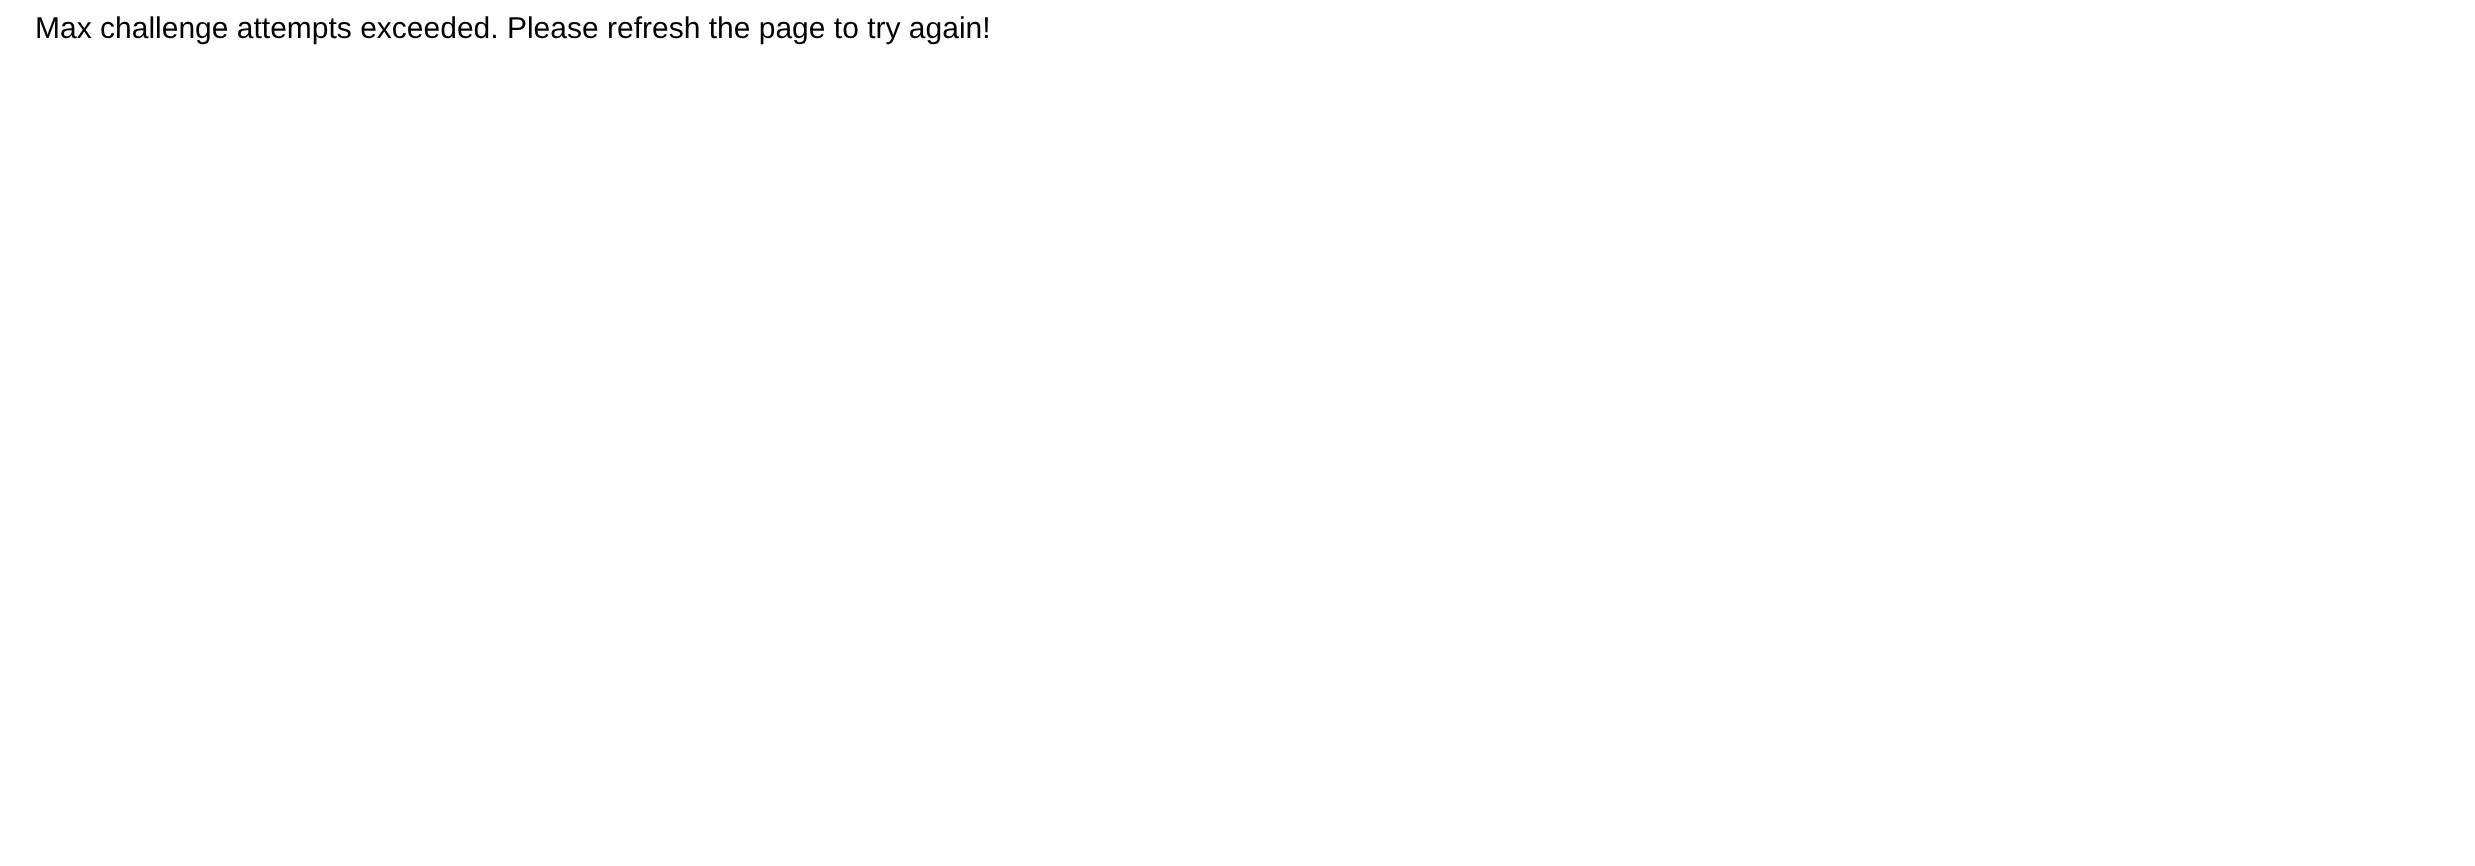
<svg xmlns="http://www.w3.org/2000/svg" width="2475" height="866" viewBox="0 0 2475 866">
  <rect width="100%" height="100%" fill="#fff"/>
  <text x="35" y="38" font-family="Liberation Sans" font-size="30" fill="#000">Max challenge attempts exceeded. Please refresh the page to try again!</text>
</svg>
